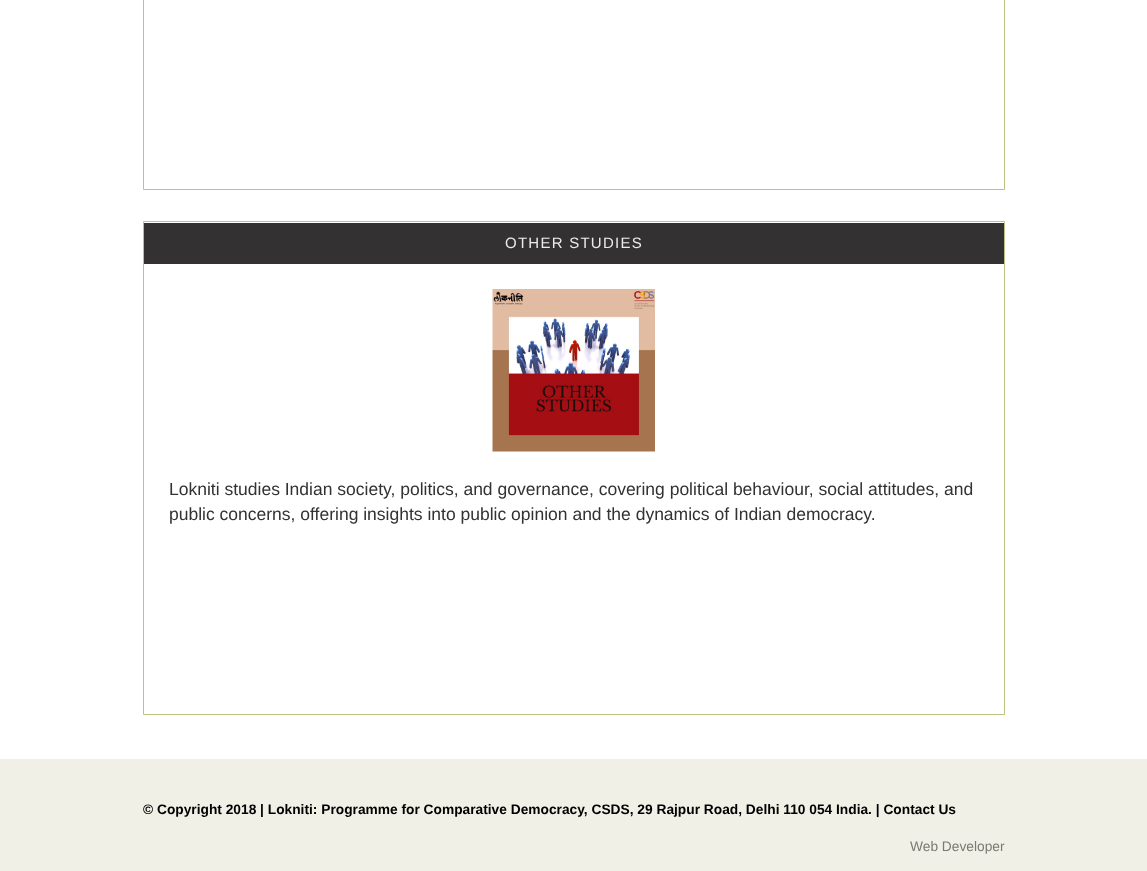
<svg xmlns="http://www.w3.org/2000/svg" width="1147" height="871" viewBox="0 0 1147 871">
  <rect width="100%" height="100%" fill="#f0f0e6"/>
  <path d="M0 0h1147v759H0z" fill="#fff"/>
  <path d="M143.5 -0.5h861v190H143.5z" fill="none" stroke="#bcc383"/>
  <path d="M143.5 221.5h861v493H143.5z" fill="none" stroke="#bcc383"/>
  <path d="M144 223h860v41H144z" fill="#333132"/>
  <image x="492" y="289" width="163" height="163" href="img/1.png"/>
  <text x="505" y="248" font-family="Liberation Sans" font-size="15" letter-spacing="1.25" fill="#ebebeb">OTHER STUDIES</text>
  <g font-family="Liberation Sans" font-size="17.5" fill="#333132">
    <text x="169" y="495">Lokniti studies Indian society, politics, and governance, covering political behaviour, social attitudes, and</text>
    <text x="169" y="520">public concerns, offering insights into public opinion and the dynamics of Indian democracy.</text>
  </g>
  <text x="143" y="814" font-family="Liberation Sans" font-size="13.75" font-weight="bold" fill="#000">© Copyright 2018 | Lokniti: Programme for Comparative Democracy, CSDS, 29 Rajpur Road, Delhi 110 054 India. | Contact Us</text>
  <text x="910" y="851" font-family="Liberation Sans" font-size="13.75" fill="#7a7a75">Web Developer</text>
</svg>
